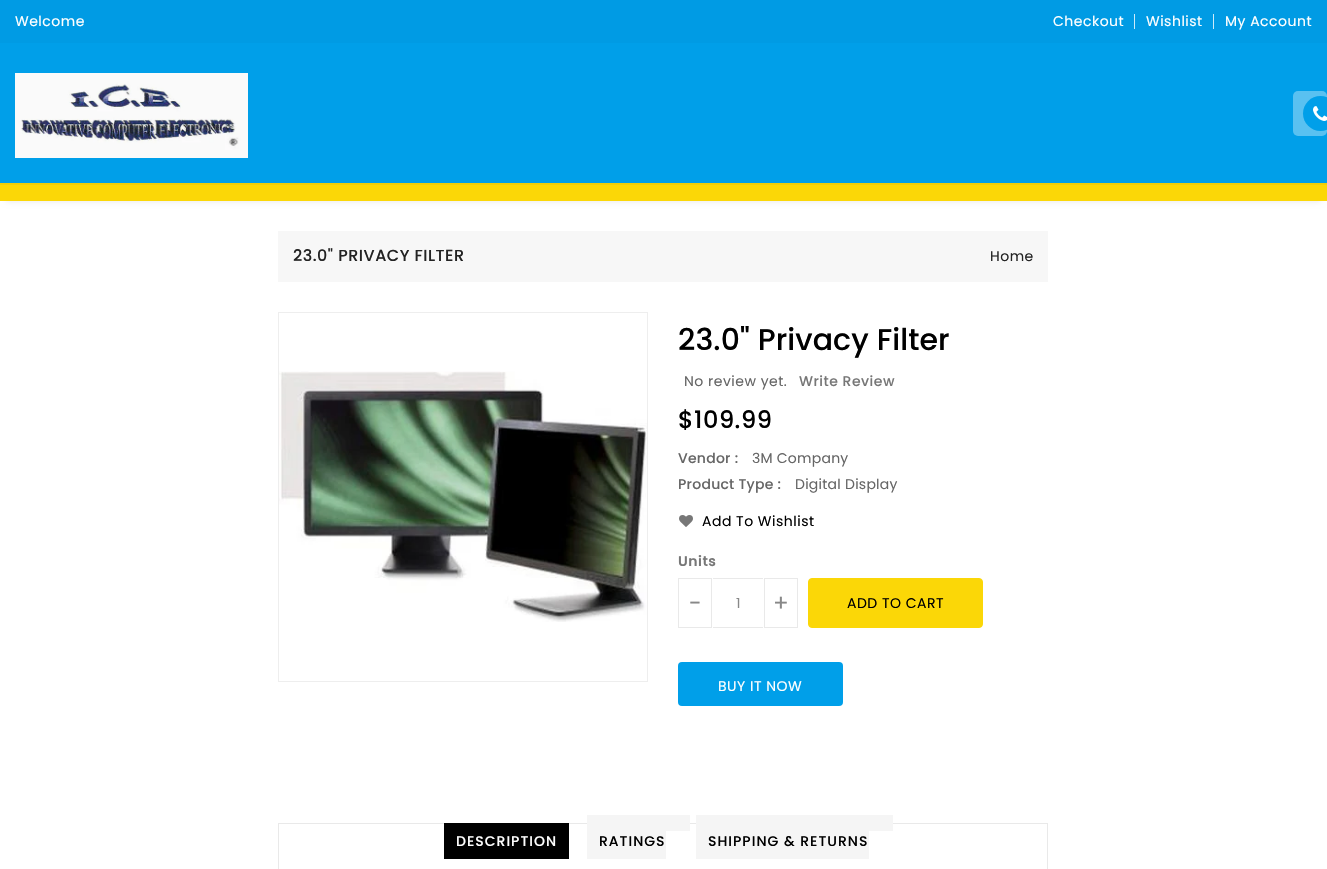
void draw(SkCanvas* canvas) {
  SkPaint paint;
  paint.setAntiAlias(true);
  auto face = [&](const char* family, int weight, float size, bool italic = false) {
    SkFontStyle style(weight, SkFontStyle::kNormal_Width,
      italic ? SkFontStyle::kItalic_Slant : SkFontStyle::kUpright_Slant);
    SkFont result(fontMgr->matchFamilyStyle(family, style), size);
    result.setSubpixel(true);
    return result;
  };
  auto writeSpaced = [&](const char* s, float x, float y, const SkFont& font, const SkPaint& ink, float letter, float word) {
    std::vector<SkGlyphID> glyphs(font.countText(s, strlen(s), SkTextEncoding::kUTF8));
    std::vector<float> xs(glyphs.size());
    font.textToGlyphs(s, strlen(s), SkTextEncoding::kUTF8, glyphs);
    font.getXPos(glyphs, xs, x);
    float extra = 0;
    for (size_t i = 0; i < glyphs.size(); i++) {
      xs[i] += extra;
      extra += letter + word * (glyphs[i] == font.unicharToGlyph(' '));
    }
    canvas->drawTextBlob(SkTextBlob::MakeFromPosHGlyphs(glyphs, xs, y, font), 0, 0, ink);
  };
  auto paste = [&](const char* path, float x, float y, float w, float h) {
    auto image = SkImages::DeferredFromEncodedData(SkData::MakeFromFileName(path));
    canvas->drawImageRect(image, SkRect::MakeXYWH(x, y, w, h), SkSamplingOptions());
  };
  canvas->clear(0xffffffff);
  {
    const struct { float x, y, w, h; SkColor color; } items[] = {
      {0, 0, 1327, 43, 0xff009be4},
      {1134, 14, 1, 15, 0xffccebfa},
      {1213, 14, 1, 15, 0xffccebfa},
      {0, 43, 1327, 140, 0xff009fe9},
    };
    for (auto [x, y, w, h, color] : items) {
      paint.setColor(color);
      canvas->drawRect(SkRect::MakeXYWH(x, y, w, h), paint);
    }
  }
  paste("img/1.png", 15, 73, 233, 85);
  paint.setColor(0xff59c1f1);
  canvas->drawRoundRect(SkRect::MakeXYWH(1293, 91, 34, 45), 5, 5, paint);
  paint.setColor(0xff009fe9);
  canvas->drawCircle(1320.5f, 113.5f, 17.5f, paint);
  paste("img/2.png", 1313, 106, 14, 15);
  paint.setColor(0x1a000000);
  paint.setMaskFilter(SkMaskFilter::MakeBlur(kNormal_SkBlurStyle, 3));
  canvas->drawRect(SkRect::MakeXYWH(6, 195, 1315, 6), paint);
  paint.setMaskFilter(nullptr);
  {
    const struct { float x, y, w, h; SkColor color; } items[] = {
      {0, 185, 1327, 16, 0xfffbd707},
      {0, 183, 1327, 2, 0xfff1ce07},
      {278, 231, 770, 51, 0xfff7f7f7},
    };
    for (auto [x, y, w, h, color] : items) {
      paint.setColor(color);
      canvas->drawRect(SkRect::MakeXYWH(x, y, w, h), paint);
    }
  }
  paint.setStroke(true);
  paint.setStrokeWidth(1);
  paint.setColor(0xffeeeeee);
  canvas->drawRect(SkRect::MakeXYWH(278.5f, 312.5f, 369, 369), paint);
  paste("img/3.png", 279, 371, 368, 251);
  paste("img/4.png", 679, 515, 14, 12);
  paint.setColor(0xffe9e9e9);
  canvas->drawRect(SkRect::MakeXYWH(678.5f, 578.5f, 33, 49), paint);
  paint.setStroke(false);
  canvas->drawRect(SkRect::MakeXYWH(713, 578, 50, 1), paint);
  canvas->drawRect(SkRect::MakeXYWH(713, 627, 50, 1), paint);
  paint.setStroke(true);
  canvas->drawRect(SkRect::MakeXYWH(764.5f, 578.5f, 33, 49), paint);
  paint.setStroke(false);
  paint.setColor(0xfffbd707);
  canvas->drawRoundRect(SkRect::MakeXYWH(808.5f, 578.5f, 174, 49), 3.5f, 3.5f, paint);
  paint.setStroke(true);
  canvas->drawRoundRect(SkRect::MakeXYWH(808.5f, 578.5f, 174, 49), 3.5f, 3.5f, paint);
  paint.setStroke(false);
  paint.setColor(0xff009fe9);
  canvas->drawRoundRect(SkRect::MakeXYWH(678, 662, 165, 44), 4, 4, paint);
  paint.setStroke(true);
  paint.setColor(0xffe9e9e9);
  canvas->drawRect(SkRect::MakeXYWH(278.5f, 823.5f, 769, 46), paint);
  paint.setStroke(false);
  {
    const struct { float x, y, w, h; SkColor color; } items[] = {
      {444, 823, 125, 36, 0xff000000},
      {587, 831, 79, 28, 0xfff5f5f5},
      {587, 815, 103, 16, 0xfff5f5f5},
      {696, 831, 173, 28, 0xfff5f5f5},
      {696, 815, 197, 16, 0xfff5f5f5},
    };
    for (auto [x, y, w, h, color] : items) {
      paint.setColor(color);
      canvas->drawRect(SkRect::MakeXYWH(x, y, w, h), paint);
    }
  }
  auto f0 = face("Poppins", 400, 14);
  paint.setColor(0xffffffff);
  {
    const struct { const char* s; float x, y; } items[] = {
      {"Welcome", 15, 26},
      {"Checkout", 1053, 26},
      {"Wishlist", 1146, 26},
      {"My Account", 1225, 26},
    };
    for (auto [s, x, y] : items) {
      writeSpaced(s, x, y, f0, paint, 0.5f, 0);
    }
  }
  auto f1 = face("Poppins", 500, 16);
  paint.setColor(0xff232323);
  writeSpaced("23.0\" PRIVACY FILTER", 293, 261, f1, paint, 0.5f, 0);
  writeSpaced("Home", 990, 261, f0, paint, 0.5f, 0);
  auto f2 = face("Poppins", 500, 30);
  paint.setColor(0xff000000);
  writeSpaced("23.0\" Privacy Filter", 678, 350, f2, paint, 0.1f, 0);
  paint.setColor(0xff666666);
  writeSpaced("No review yet.", 684, 386, f0, paint, 0.5f, 0);
  auto f3 = face("Poppins", 500, 14);
  paint.setColor(0xff777777);
  writeSpaced("Write Review", 799, 386, f3, paint, 0.5f, 0);
  auto f4 = face("Poppins", 500, 24);
  paint.setColor(0xff000000);
  writeSpaced("$109.99", 678, 428, f4, paint, 0.5f, 0);
  paint.setColor(0xff666666);
  writeSpaced("Vendor :", 678, 463, f3, paint, 0.25f, 0);
  writeSpaced("3M Company", 752, 463, f0, paint, 0.25f, 0);
  writeSpaced("Product Type :", 678, 489, f3, paint, 0.25f, 0);
  writeSpaced("Digital Display", 795, 489, f0, paint, 0.25f, 0);
  paint.setColor(0xff000000);
  writeSpaced("Add To Wishlist", 702, 526, f0, paint, 0.5f, 0);
  auto f5 = face("Poppins", 600, 14);
  paint.setColor(0xff777777);
  writeSpaced("Units", 678, 566, f5, paint, 0.5f, 0);
  auto f6 = face("Poppins", 400, 23);
  paint.setColor(0xff888888);
  writeSpaced("-", 689, 611, f6, paint, 0.5f, 0);
  writeSpaced("1", 736, 608, f0, paint, 0.5f, 0);
  writeSpaced("+", 773, 611, f6, paint, 0.5f, 0);
  paint.setColor(0xff000000);
  writeSpaced("ADD TO CART", 847, 608, f0, paint, 0.5f, 0);
  paint.setColor(0xffffffff);
  writeSpaced("BUY IT NOW", 718, 691, f0, paint, 0.5f, 0);
  writeSpaced("DESCRIPTION", 456, 846, f3, paint, 1, 0);
  paint.setColor(0xff000000);
  writeSpaced("RATINGS", 599, 846, f3, paint, 1, 0);
  writeSpaced("SHIPPING & RETURNS", 708, 846, f3, paint, 1, 0);
}
